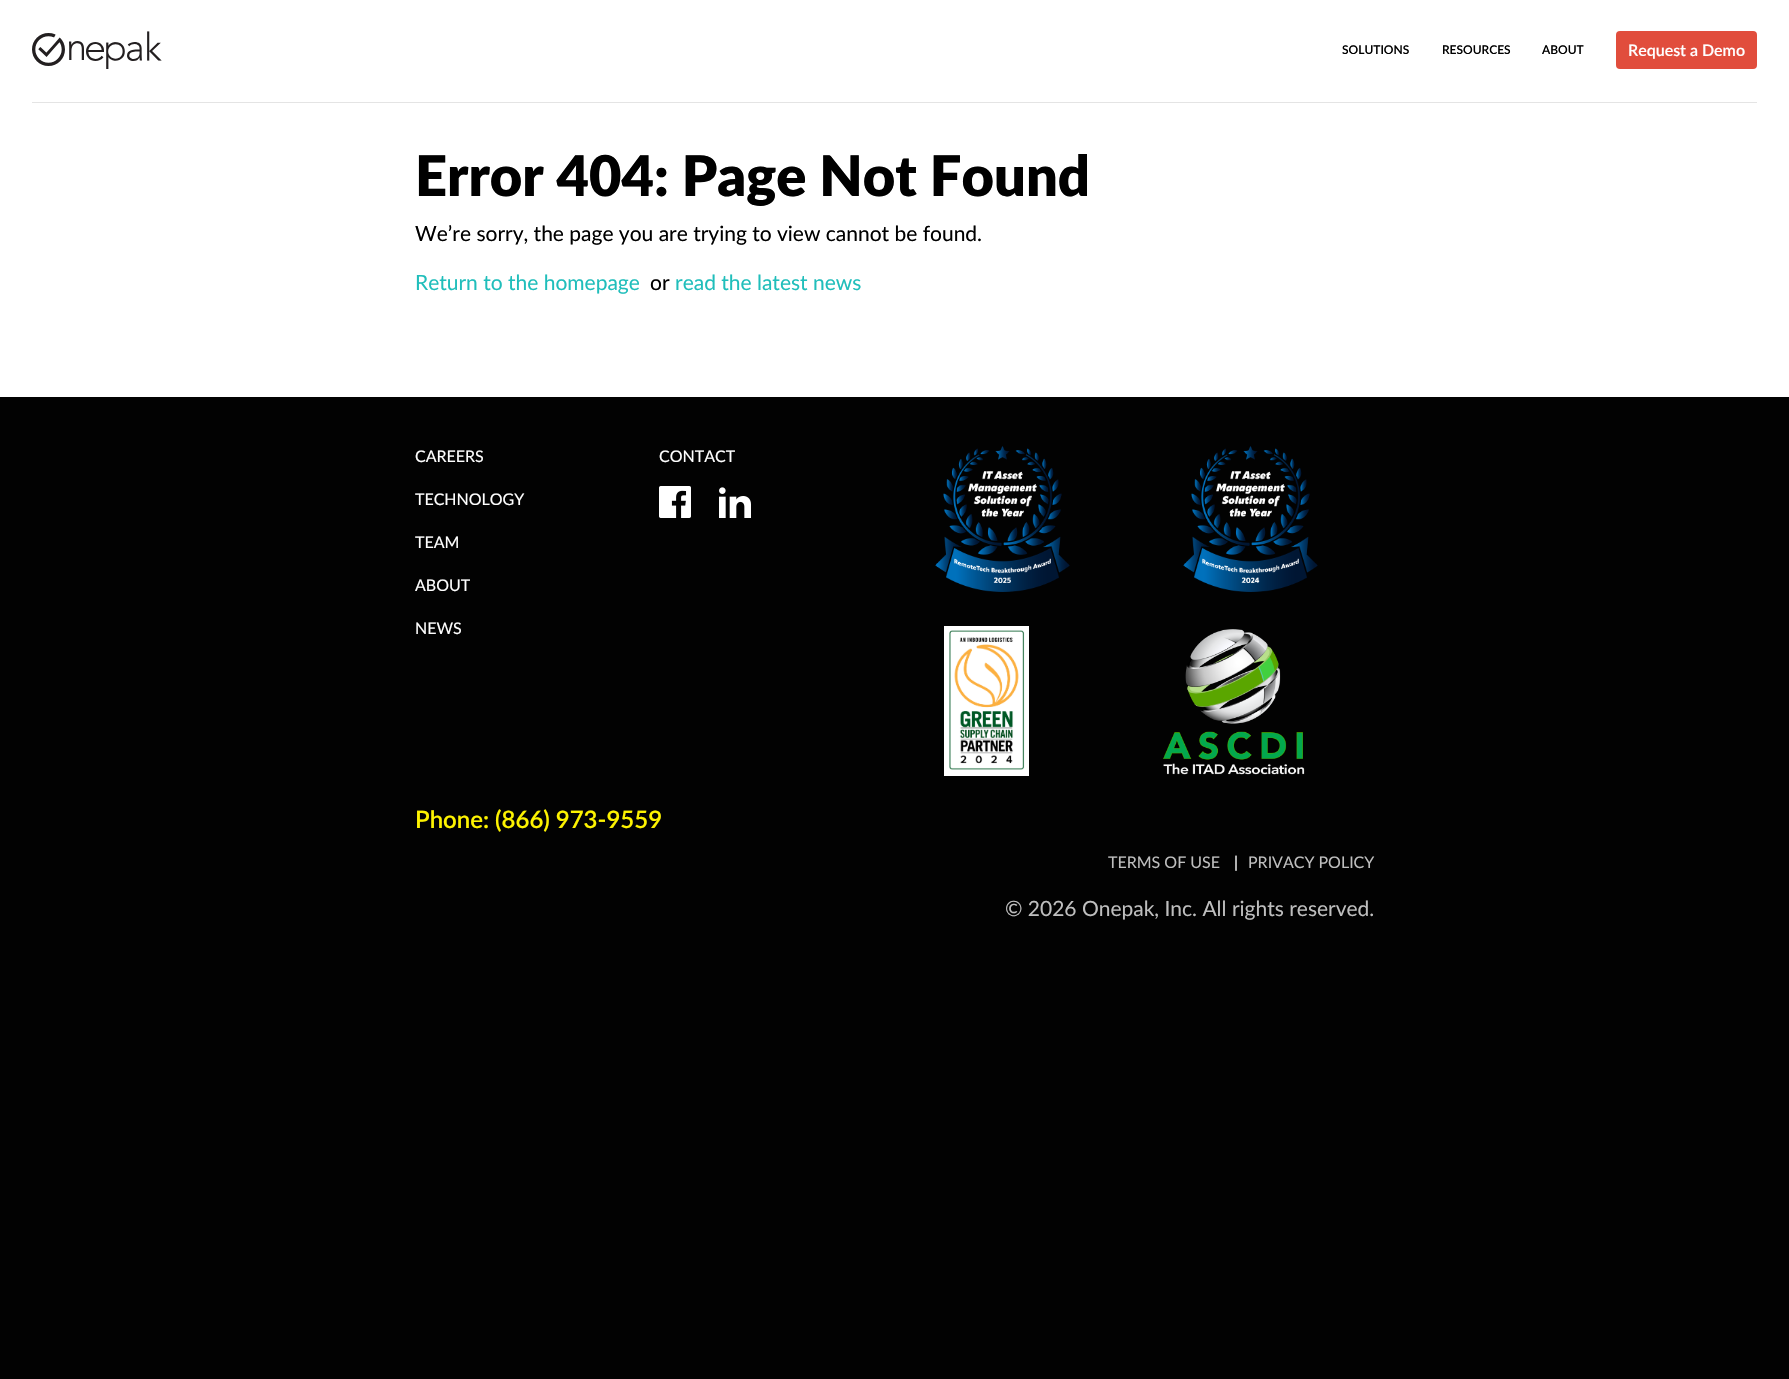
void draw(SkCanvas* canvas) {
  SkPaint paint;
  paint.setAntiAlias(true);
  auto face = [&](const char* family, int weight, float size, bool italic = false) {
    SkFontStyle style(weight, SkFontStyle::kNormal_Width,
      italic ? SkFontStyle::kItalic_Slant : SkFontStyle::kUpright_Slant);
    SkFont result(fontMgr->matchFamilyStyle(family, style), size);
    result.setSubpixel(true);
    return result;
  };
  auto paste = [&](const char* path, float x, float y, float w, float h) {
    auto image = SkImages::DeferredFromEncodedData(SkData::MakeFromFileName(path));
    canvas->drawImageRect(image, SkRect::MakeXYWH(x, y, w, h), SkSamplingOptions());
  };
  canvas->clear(0xff020202);
  paint.setColor(0xffffffff);
  canvas->drawRect(SkRect::MakeXYWH(0, 0, 1789, 397), paint);
  paint.setColor(0xffe4e4e4);
  canvas->drawRect(SkRect::MakeXYWH(32, 102, 1725, 1), paint);
  paste("img/1.png", 32, 31, 130, 38);
  paint.setColor(0xffe14d3c);
  canvas->drawRoundRect(SkRect::MakeXYWH(1616, 31, 141, 38), 4, 4, paint);
  paste("img/2.png", 659, 486, 32, 32);
  paste("img/3.png", 719, 487, 32, 31);
  paste("img/4.png", 935, 446, 135, 146);
  paste("img/5.png", 1183, 446, 135, 146);
  paste("img/6.png", 944, 626, 85, 150);
  paste("img/7.png", 1163, 629, 142, 146);
  auto f0 = face("Lato", 600, 12);
  paint.setColor(0xff000000);
  {
    const struct { const char* s; float x, y; } items[] = {
      {"SOLUTIONS", 1342, 54},
      {"RESOURCES", 1442, 54},
      {"ABOUT", 1542, 54},
    };
    for (auto [s, x, y] : items) {
      canvas->drawString(s, x, y, f0, paint);
    }
  }
  auto f1 = face("Lato", 600, 16);
  paint.setColor(0xffffffff);
  canvas->drawString("Request a Demo", 1628, 56, f1, paint);
  auto f2 = face("Lato", 900, 56);
  paint.setColor(0xff000000);
  canvas->drawString("Error 404: Page Not Found", 415, 196, f2, paint);
  auto f3 = face("Lato", 400, 21);
  canvas->drawString("We’re sorry, the page you are trying to view cannot be found.", 415, 241, f3, paint);
  paint.setColor(0xff20bebb);
  canvas->drawString("Return to the homepage", 415, 290, f3, paint);
  paint.setColor(0xff000000);
  canvas->drawString("or", 650, 290, f3, paint);
  paint.setColor(0xff20bebb);
  canvas->drawString("read the latest news", 675, 290, f3, paint);
  auto f4 = face("Lato", 400, 16);
  paint.setColor(0xffffffff);
  {
    const struct { const char* s; float x, y; } items[] = {
      {"CAREERS", 415, 462},
      {"TECHNOLOGY", 415, 505},
      {"TEAM", 415, 548},
      {"ABOUT", 415, 591},
      {"NEWS", 415, 634},
      {"CONTACT", 659, 462},
    };
    for (auto [s, x, y] : items) {
      canvas->drawString(s, x, y, f4, paint);
    }
  }
  auto f5 = face("Lato", 600, 24);
  paint.setColor(0xfffef300);
  canvas->drawString("Phone: (866) 973-9559", 415, 828, f5, paint);
  paint.setColor(0xffbebebe);
  canvas->drawString("TERMS OF USE", 1108, 868, f4, paint);
  paint.setColor(0xffffffff);
  canvas->drawString("|", 1234, 868, f4, paint);
  paint.setColor(0xffbebebe);
  canvas->drawString("PRIVACY POLICY", 1248, 868, f4, paint);
  canvas->drawString("© 2026 Onepak, Inc. All rights reserved.", 1005, 916, f3, paint);
}
